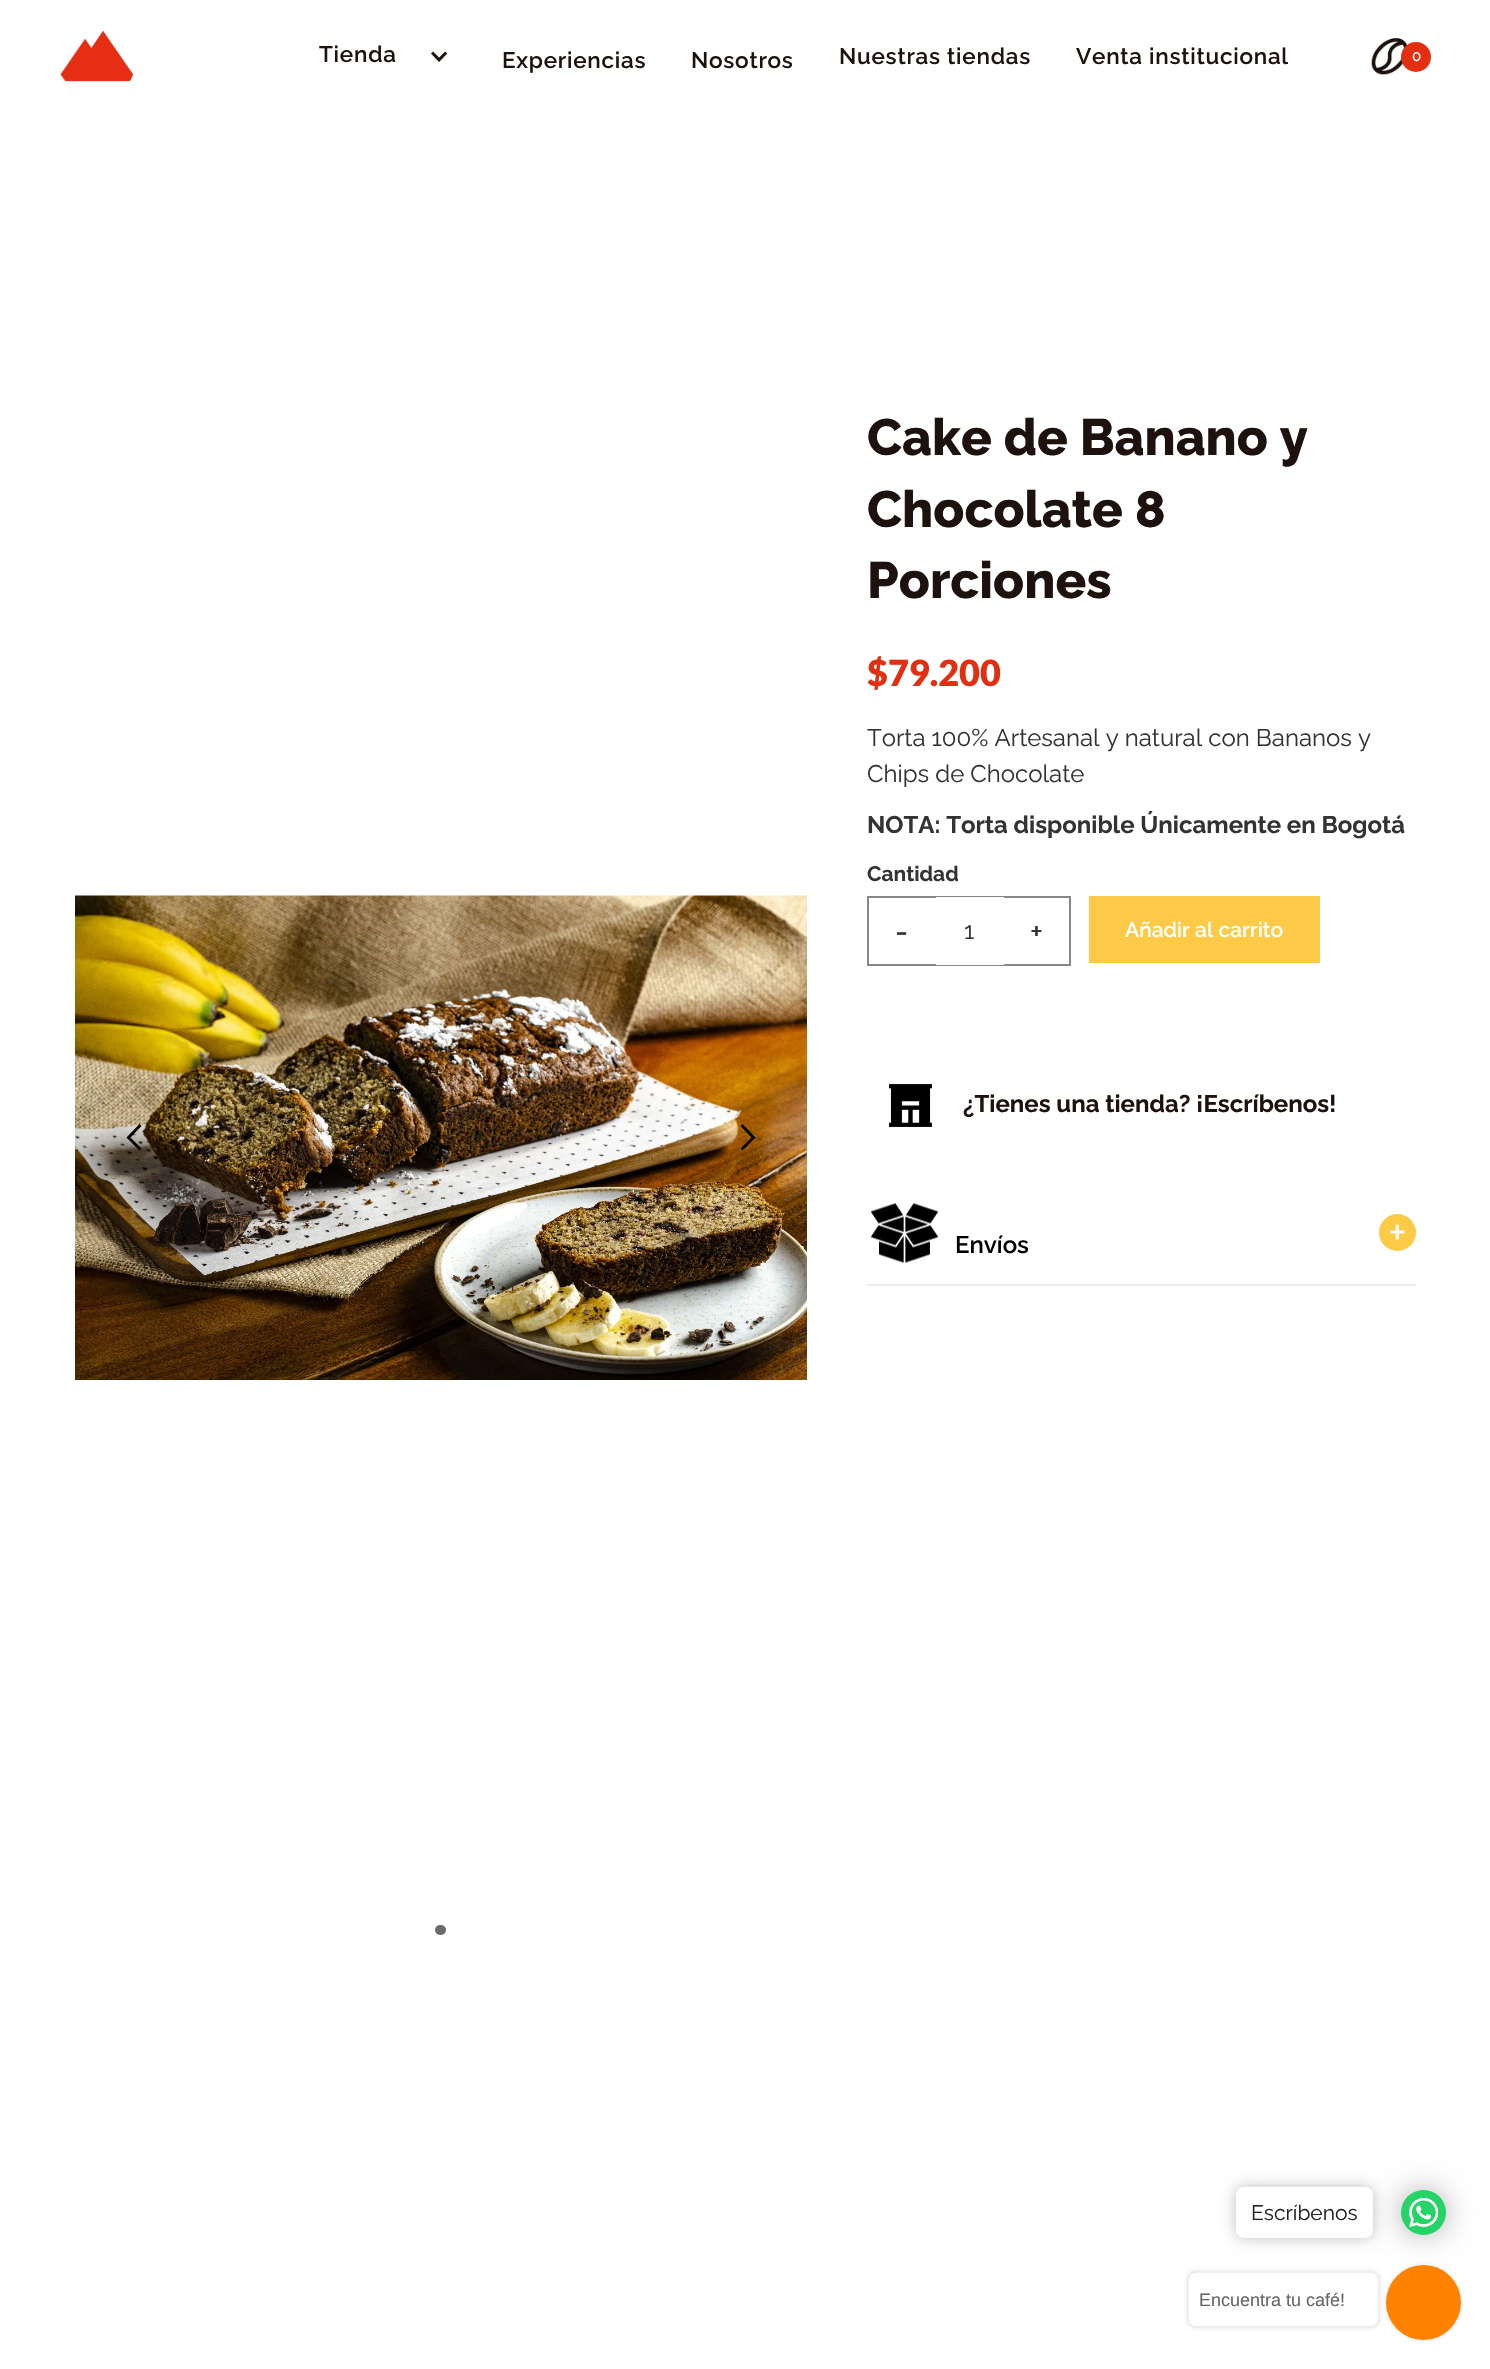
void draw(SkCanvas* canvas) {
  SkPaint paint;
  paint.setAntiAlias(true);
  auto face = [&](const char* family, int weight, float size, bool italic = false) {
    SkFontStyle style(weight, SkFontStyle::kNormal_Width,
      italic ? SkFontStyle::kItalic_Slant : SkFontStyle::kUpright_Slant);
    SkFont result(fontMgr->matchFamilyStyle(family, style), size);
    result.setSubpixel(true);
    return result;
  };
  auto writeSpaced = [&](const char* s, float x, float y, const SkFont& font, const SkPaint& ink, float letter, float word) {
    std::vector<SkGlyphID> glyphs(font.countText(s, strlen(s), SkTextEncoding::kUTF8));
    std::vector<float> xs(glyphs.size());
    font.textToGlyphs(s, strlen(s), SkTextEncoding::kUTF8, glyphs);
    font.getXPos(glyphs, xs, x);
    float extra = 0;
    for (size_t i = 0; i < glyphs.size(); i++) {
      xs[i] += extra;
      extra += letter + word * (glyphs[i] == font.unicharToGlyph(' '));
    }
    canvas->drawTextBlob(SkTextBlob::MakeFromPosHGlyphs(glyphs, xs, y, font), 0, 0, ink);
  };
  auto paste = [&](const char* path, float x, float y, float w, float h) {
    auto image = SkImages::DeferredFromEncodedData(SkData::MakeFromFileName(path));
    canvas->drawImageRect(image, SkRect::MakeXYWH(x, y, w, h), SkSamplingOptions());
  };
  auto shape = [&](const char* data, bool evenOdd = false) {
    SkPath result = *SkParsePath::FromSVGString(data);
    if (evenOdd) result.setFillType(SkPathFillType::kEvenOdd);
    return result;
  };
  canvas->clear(0xffffffff);
  paste("img/1.png", 60, 30, 74, 52);
  paste("img/2.png", 431, 51, 17, 11);
  paste("img/3.png", 1371, 37, 36, 38);
  paint.setColor(0xffe42e12);
  canvas->drawCircle(1416, 57, 15, paint);
  paste("img/4.png", 75, 895, 732, 485);
  paint.setColor(0xff000000);
  canvas->drawPath(shape("M126.5 1137.5L139.5 1124L141.5 1126L130.5 1137.5L141.5 1148.5L139.5 1150.5Z"), paint);
  canvas->drawPath(shape("M755.5 1137.5L742.5 1124L740.5 1126L751.5 1137.5L740.5 1148.5L742.5 1150.5Z"), paint);
  paint.setColor(0xff6b6b6b);
  canvas->drawRoundRect(SkRect::MakeXYWH(435, 1925, 11, 10), 5, 5, paint);
  paint.setStroke(true);
  paint.setStrokeWidth(2);
  paint.setColor(0xff878787);
  canvas->drawRect(SkRect::MakeXYWH(868, 897, 202, 68), paint);
  paint.setStroke(false);
  paint.setColor(0xffffffff);
  canvas->drawRect(SkRect::MakeXYWH(936, 897, 68, 68), paint);
  paint.setColor(0xfffcca46);
  canvas->drawRect(SkRect::MakeXYWH(1089, 896, 231, 67), paint);
  paste("img/5.png", 889, 1084, 43, 43);
  paint.setColor(0xffededed);
  canvas->drawRect(SkRect::MakeXYWH(867, 1284, 549, 2), paint);
  paint.setColor(0xfffcca46);
  canvas->drawCircle(1397.5f, 1232.5f, 18.5f, paint);
  paste("img/6.png", 870, 1203, 69, 60);
  paint.setColor(0x52000000);
  paint.setMaskFilter(SkMaskFilter::MakeBlur(kNormal_SkBlurStyle, 15));
  canvas->drawRoundRect(SkRect::MakeXYWH(1401, 2190, 45, 45), 22.5f, 22.5f, paint);
  paint.setMaskFilter(nullptr);
  paint.setColor(0xff25d366);
  canvas->drawCircle(1423.5f, 2212.5f, 22.5f, paint);
  paint.setColor(0x40000000);
  paint.setMaskFilter(SkMaskFilter::MakeBlur(kNormal_SkBlurStyle, 7.5f));
  canvas->drawRoundRect(SkRect::MakeXYWH(1236, 2187, 137, 51), 8, 8, paint);
  paint.setMaskFilter(nullptr);
  paint.setColor(0xffffffff);
  canvas->drawRoundRect(SkRect::MakeXYWH(1236, 2187, 137, 51), 8, 8, paint);
  paste("img/7.png", 1409, 2198, 29, 29);
  paint.setColor(0x1a000000);
  paint.setMaskFilter(SkMaskFilter::MakeBlur(kNormal_SkBlurStyle, 2));
  canvas->drawRoundRect(SkRect::MakeXYWH(1386, 2265, 75, 75), 37.5f, 37.5f, paint);
  paint.setMaskFilter(nullptr);
  paint.setColor(0xffff8200);
  canvas->drawCircle(1423.5f, 2302.5f, 37.5f, paint);
  paint.setColor(0x1a000000);
  paint.setMaskFilter(SkMaskFilter::MakeBlur(kNormal_SkBlurStyle, 2));
  canvas->drawRoundRect(SkRect::MakeXYWH(1187, 2271, 193, 57), 9, 9, paint);
  paint.setMaskFilter(nullptr);
  paint.setColor(0xffffffff);
  canvas->drawRoundRect(SkRect::MakeXYWH(1188, 2272, 191, 55), 8, 8, paint);
  paint.setStroke(true);
  paint.setColor(0xffeeeeee);
  canvas->drawRoundRect(SkRect::MakeXYWH(1188, 2272, 191, 55), 8, 8, paint);
  auto f0 = face("Raleway", 600, 22.5f);
  paint.setStroke(false);
  paint.setColor(0xff1e120e);
  {
    const struct { const char* s; float x, y; } items[] = {
      {"Tienda", 319, 62},
      {"Experiencias", 502, 68},
      {"Nosotros", 691, 68},
      {"Nuestras tiendas", 839, 64},
      {"Venta institucional", 1076, 64},
    };
    for (auto [s, x, y] : items) {
      writeSpaced(s, x, y, f0, paint, 0.75f, 0);
    }
  }
  auto f1 = face("Raleway", 500, 15);
  paint.setColor(0xffffffff);
  canvas->drawString("0", 1412, 61, f1, paint);
  auto f2 = face("Raleway", 800, 51);
  paint.setColor(0xff1e120e);
  {
    const struct { const char* s; float x, y; } items[] = {
      {"Cake de Banano y", 867, 455},
      {"Chocolate 8", 867, 527},
      {"Porciones", 867, 598},
    };
    for (auto [s, x, y] : items) {
      canvas->drawString(s, x, y, f2, paint);
    }
  }
  auto f3 = face("Lato", 900, 36);
  paint.setColor(0xffe42e12);
  canvas->drawString("$79.200", 867, 686, f3, paint);
  auto f4 = face("Raleway", 400, 24);
  paint.setColor(0xff333333);
  canvas->drawString("Torta 100% Artesanal y natural con Bananos y", 867, 746, f4, paint);
  canvas->drawString("Chips de Chocolate", 867, 782, f4, paint);
  auto f5 = face("Raleway", 700, 24);
  canvas->drawString("NOTA: Torta disponible Únicamente en Bogotá", 867, 833, f5, paint);
  auto f6 = face("Raleway", 700, 21);
  canvas->drawString("Cantidad", 867, 881, f6, paint);
  auto f7 = face("Raleway", 500, 31);
  canvas->drawString("-", 895, 942, f7, paint);
  canvas->drawString("1", 964, 939, f4, paint);
  canvas->drawString("+", 1030, 942, f7, paint);
  auto f8 = face("Raleway", 600, 21);
  paint.setColor(0xffffffff);
  canvas->drawString("Añadir al carrito", 1125, 937, f8, paint);
  paint.setColor(0xff1e120e);
  canvas->drawString("¿Tienes una tienda? ¡Escríbenos!", 963, 1112, f5, paint);
  auto f9 = face("Raleway", 400, 45);
  paint.setColor(0xffffffff);
  canvas->drawString("+", 1388, 1248, f9, paint);
  auto f10 = face("Raleway", 600, 24);
  paint.setColor(0xff000000);
  canvas->drawString("Envíos", 955, 1253, f10, paint);
  auto f11 = face("Raleway", 400, 21);
  paint.setColor(0xff1f1f1f);
  canvas->drawString("Escríbenos", 1251, 2220, f11, paint);
  auto f12 = face("Liberation Sans", 400, 18);
  paint.setColor(0xff666666);
  canvas->drawString("Encuentra tu café!", 1199, 2306, f12, paint);
}
